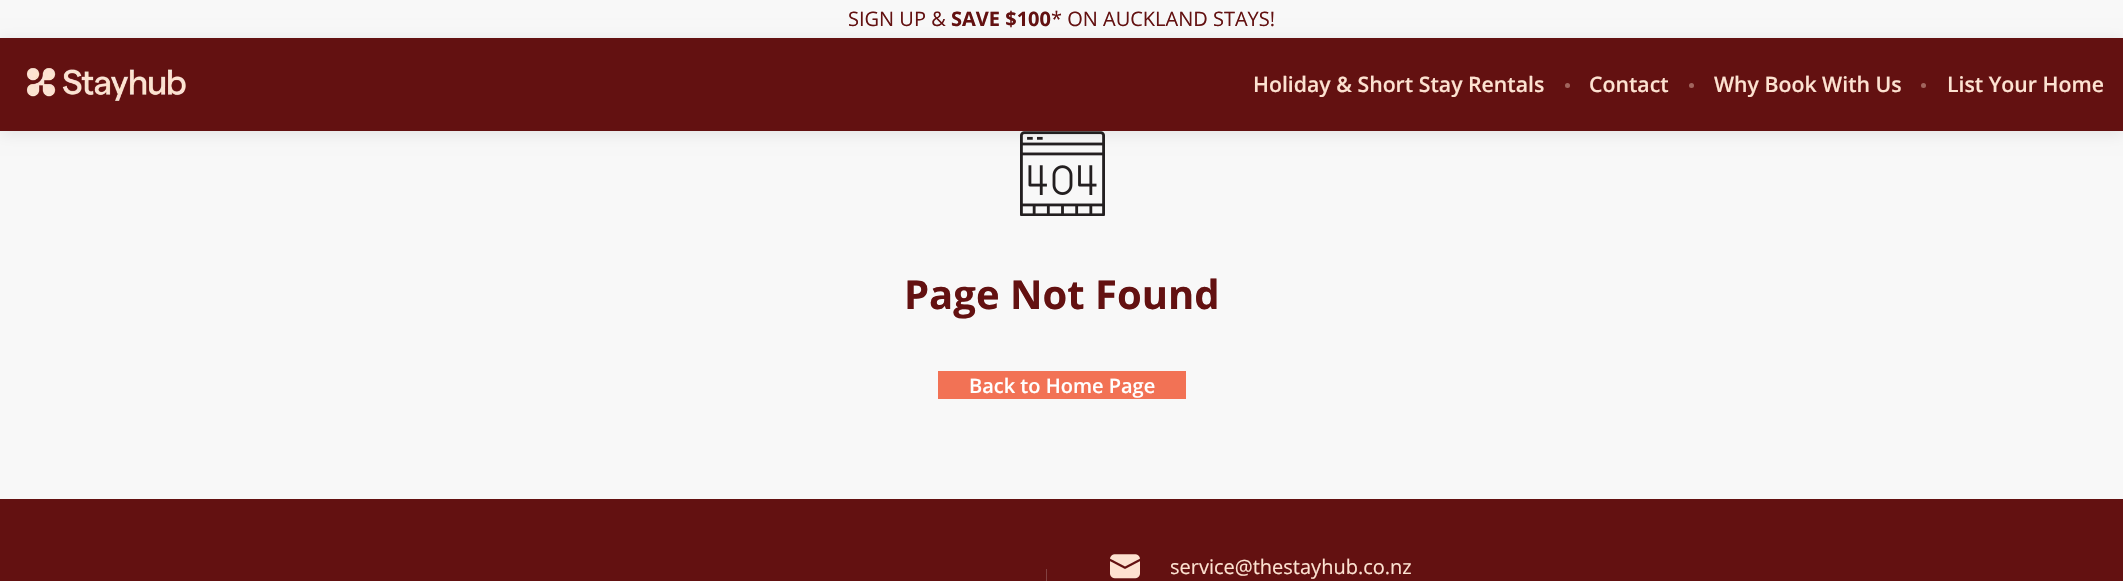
void draw(SkCanvas* canvas) {
  SkPaint paint;
  paint.setAntiAlias(true);
  auto face = [&](const char* family, int weight, float size, bool italic = false) {
    SkFontStyle style(weight, SkFontStyle::kNormal_Width,
      italic ? SkFontStyle::kItalic_Slant : SkFontStyle::kUpright_Slant);
    SkFont result(fontMgr->matchFamilyStyle(family, style), size);
    result.setSubpixel(true);
    return result;
  };
  auto paste = [&](const char* path, float x, float y, float w, float h) {
    auto image = SkImages::DeferredFromEncodedData(SkData::MakeFromFileName(path));
    canvas->drawImageRect(image, SkRect::MakeXYWH(x, y, w, h), SkSamplingOptions());
  };
  canvas->clear(0xfff8f8f8);
  paste("img/2.png", 1020, 131, 85, 85);
  paint.setColor(0x14000000);
  paint.setMaskFilter(SkMaskFilter::MakeBlur(kNormal_SkBlurStyle, 7.5f));
  canvas->drawRect(SkRect::MakeXYWH(0, 40, 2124, 94), paint);
  paint.setMaskFilter(nullptr);
  paint.setColor(0xff631111);
  canvas->drawRect(SkRect::MakeXYWH(0, 38, 2123, 93), paint);
  paste("img/1.png", 26, 68, 160, 33);
  paint.setColor(0xffa1655e);
  canvas->drawCircle(1567.5f, 85.5f, 2.5f, paint);
  canvas->drawCircle(1691.5f, 85.5f, 2.5f, paint);
  canvas->drawCircle(1923.5f, 85.5f, 2.5f, paint);
  {
    const struct { float x, y, w, h; SkColor color; } items[] = {
      {938, 371, 248, 28, 0xfff27255},
      {0, 499, 2123, 82, 0xff631111},
      {1046, 569, 1, 12, 0xff824141},
    };
    for (auto [x, y, w, h, color] : items) {
      paint.setColor(color);
      canvas->drawRect(SkRect::MakeXYWH(x, y, w, h), paint);
    }
  }
  paste("img/3.png", 1110, 554, 30, 25);
  auto f0 = face("Open Sans", 400, 20);
  paint.setColor(0xff631111);
  canvas->drawString("SIGN UP &", 848, 26, f0, paint);
  auto f1 = face("Open Sans", 700, 20);
  canvas->drawString("SAVE $100", 951, 26, f1, paint);
  canvas->drawString("* ON AUCKLAND STAYS!", 1051, 26, f0, paint);
  auto f2 = face("Open Sans", 600, 21.25f);
  paint.setColor(0xfffde2d1);
  {
    const struct { const char* s; float x, y; } items[] = {
      {"Holiday & Short Stay Rentals", 1253, 92},
      {"Contact", 1589, 92},
      {"Why Book With Us", 1714, 92},
      {"List Your Home", 1947, 92},
    };
    for (auto [s, x, y] : items) {
      canvas->drawString(s, x, y, f2, paint);
    }
  }
  auto f3 = face("Open Sans", 700, 40);
  paint.setColor(0xff631111);
  canvas->drawString("Page Not Found", 904, 309, f3, paint);
  auto f4 = face("Open Sans", 600, 20);
  paint.setColor(0xffffffff);
  canvas->drawString("Back to Home Page", 969, 393, f4, paint);
  paint.setColor(0xfffde2d1);
  canvas->drawString("service@thestayhub.co.nz", 1170, 574, f0, paint);
}
